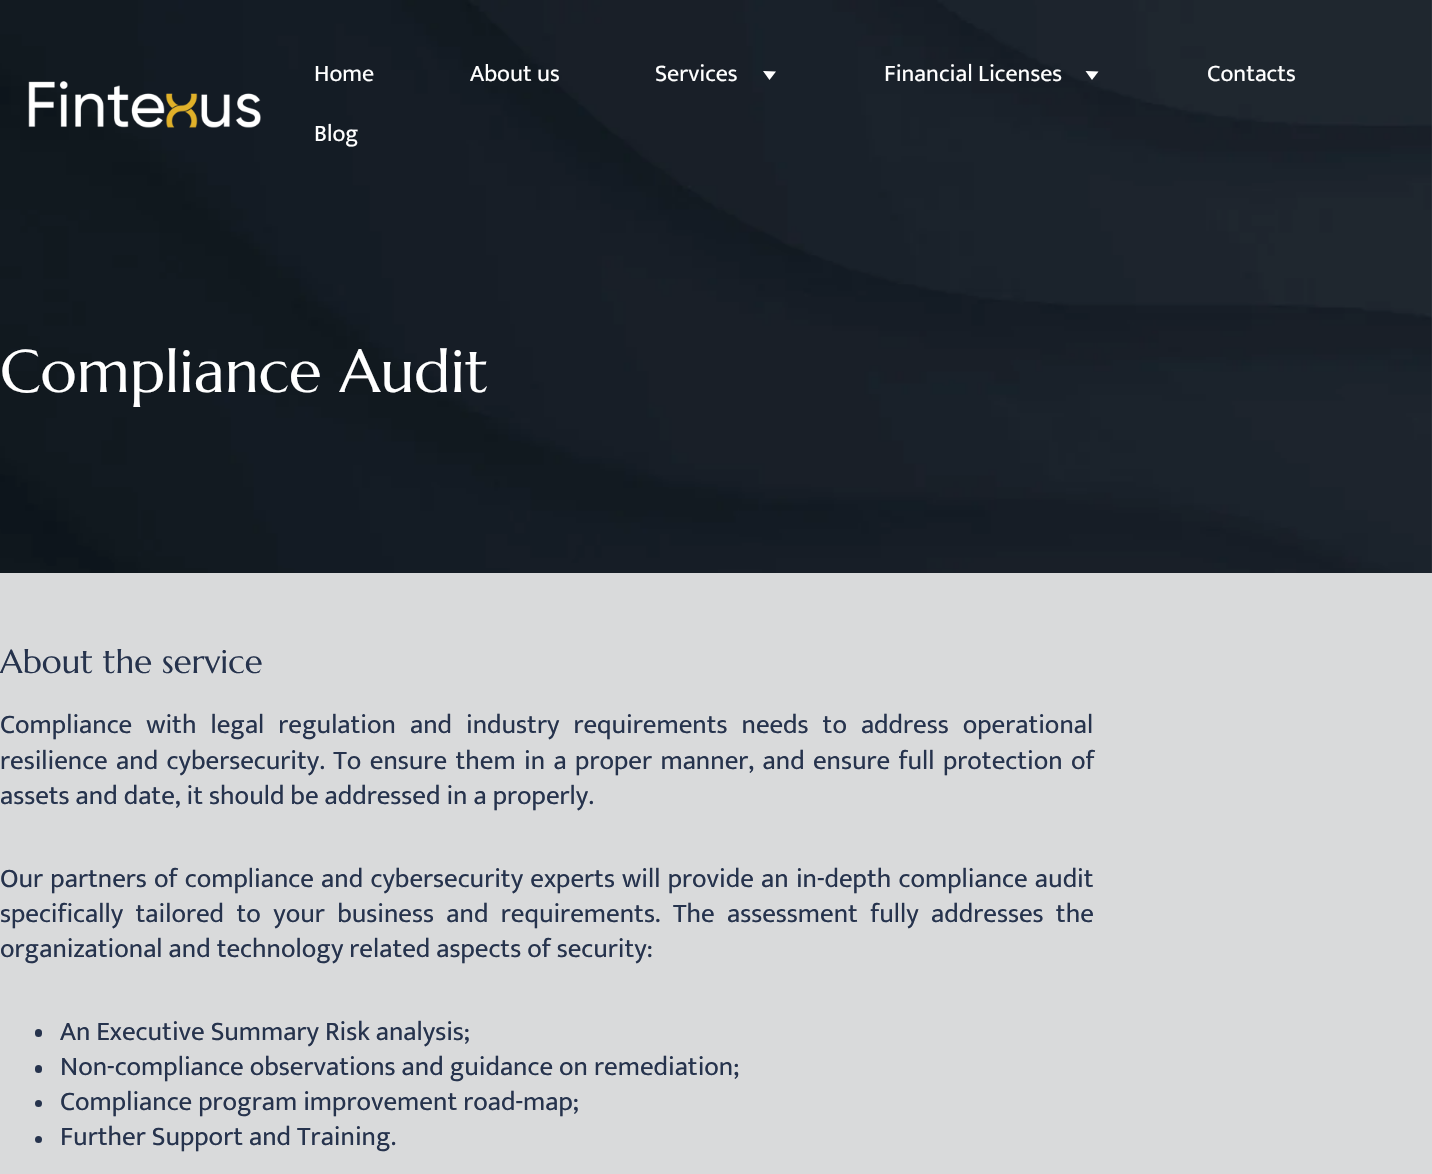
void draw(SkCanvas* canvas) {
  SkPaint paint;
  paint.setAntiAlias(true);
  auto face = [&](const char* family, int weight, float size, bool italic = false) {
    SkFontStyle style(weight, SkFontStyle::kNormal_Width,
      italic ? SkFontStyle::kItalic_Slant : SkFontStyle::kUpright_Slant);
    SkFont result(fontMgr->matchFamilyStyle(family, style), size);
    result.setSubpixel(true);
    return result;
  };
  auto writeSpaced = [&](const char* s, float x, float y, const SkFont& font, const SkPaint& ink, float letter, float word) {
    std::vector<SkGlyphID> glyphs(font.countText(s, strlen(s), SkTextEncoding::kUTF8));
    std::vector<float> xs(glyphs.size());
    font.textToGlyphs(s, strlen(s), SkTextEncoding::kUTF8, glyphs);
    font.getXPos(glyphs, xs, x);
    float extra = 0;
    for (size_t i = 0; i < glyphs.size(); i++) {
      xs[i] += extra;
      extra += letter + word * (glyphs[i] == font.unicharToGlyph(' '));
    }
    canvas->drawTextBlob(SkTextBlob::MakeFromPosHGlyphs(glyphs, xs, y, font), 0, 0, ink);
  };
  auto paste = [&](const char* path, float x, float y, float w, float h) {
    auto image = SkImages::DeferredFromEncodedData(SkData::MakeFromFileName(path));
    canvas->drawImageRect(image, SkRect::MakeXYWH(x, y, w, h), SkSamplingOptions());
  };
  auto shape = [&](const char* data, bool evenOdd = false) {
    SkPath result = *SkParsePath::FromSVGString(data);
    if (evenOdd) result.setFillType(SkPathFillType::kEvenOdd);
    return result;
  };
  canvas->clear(0xffffffff);
  paste("img/2.png", 0, 0, 1432, 573);
  paste("img/1.png", 28, 81, 233, 47);
  paint.setColor(0xffffffff);
  canvas->drawPath(shape("M769.5 80L763 71L776 71.5Z"), paint);
  canvas->drawPath(shape("M1092 80L1085.5 71L1098.5 71.5Z"), paint);
  paint.setColor(0xffd9dadb);
  canvas->drawRect(SkRect::MakeXYWH(0, 573, 1432, 601), paint);
  paint.setColor(0xff26334d);
  canvas->drawRoundRect(SkRect::MakeXYWH(35, 1029, 7, 8), 3.5f, 3.5f, paint);
  canvas->drawRoundRect(SkRect::MakeXYWH(35, 1065, 7, 8), 3.5f, 3.5f, paint);
  canvas->drawCircle(38.5f, 1103.5f, 3.5f, paint);
  canvas->drawCircle(38.5f, 1139.5f, 3.5f, paint);
  auto f0 = face("Mukta", 400, 24);
  paint.setColor(0xffffffff);
  {
    const struct { const char* s; float x, y; } items[] = {
      {"Home", 314, 81},
      {"About us", 470, 81},
      {"Services", 655, 81},
      {"Financial Licenses", 884, 81},
      {"Contacts", 1207, 81},
      {"Blog", 314, 141},
    };
    for (auto [s, x, y] : items) {
      canvas->drawString(s, x, y, f0, paint);
    }
  }
  auto f1 = face("Marcellus", 400, 60);
  canvas->drawString("Compliance Audit", 0, 392, f1, paint);
  auto f2 = face("Marcellus", 400, 33);
  paint.setColor(0xff26334d);
  canvas->drawString("About the service", 0, 673, f2, paint);
  auto f3 = face("Mukta", 400, 27);
  writeSpaced("Compliance with legal regulation and industry requirements needs to address operational", 0, 733, f3, paint, 0, 8);
  writeSpaced("resilience and cybersecurity. To ensure them in a proper manner, and ensure full protection of", 0, 769, f3, paint, 0, 2.4f);
  canvas->drawString("assets and date, it should be addressed in a properly.", 0, 804, f3, paint);
  writeSpaced("Our partners of compliance and cybersecurity experts will provide an in-depth compliance audit", 0, 887, f3, paint, 0, 1.25f);
  writeSpaced("specifically tailored to your business and requirements. The assessment fully addresses the", 0, 922, f3, paint, 0, 6.4f);
  {
    const struct { const char* s; float x, y; } items[] = {
      {"organizational and technology related aspects of security:", 0, 957},
      {"An Executive Summary Risk analysis;", 60, 1040},
      {"Non-compliance observations and guidance on remediation;", 60, 1075},
      {"Compliance program improvement road-map;", 60, 1110},
      {"Further Support and Training.", 60, 1145},
    };
    for (auto [s, x, y] : items) {
      canvas->drawString(s, x, y, f3, paint);
    }
  }
}
